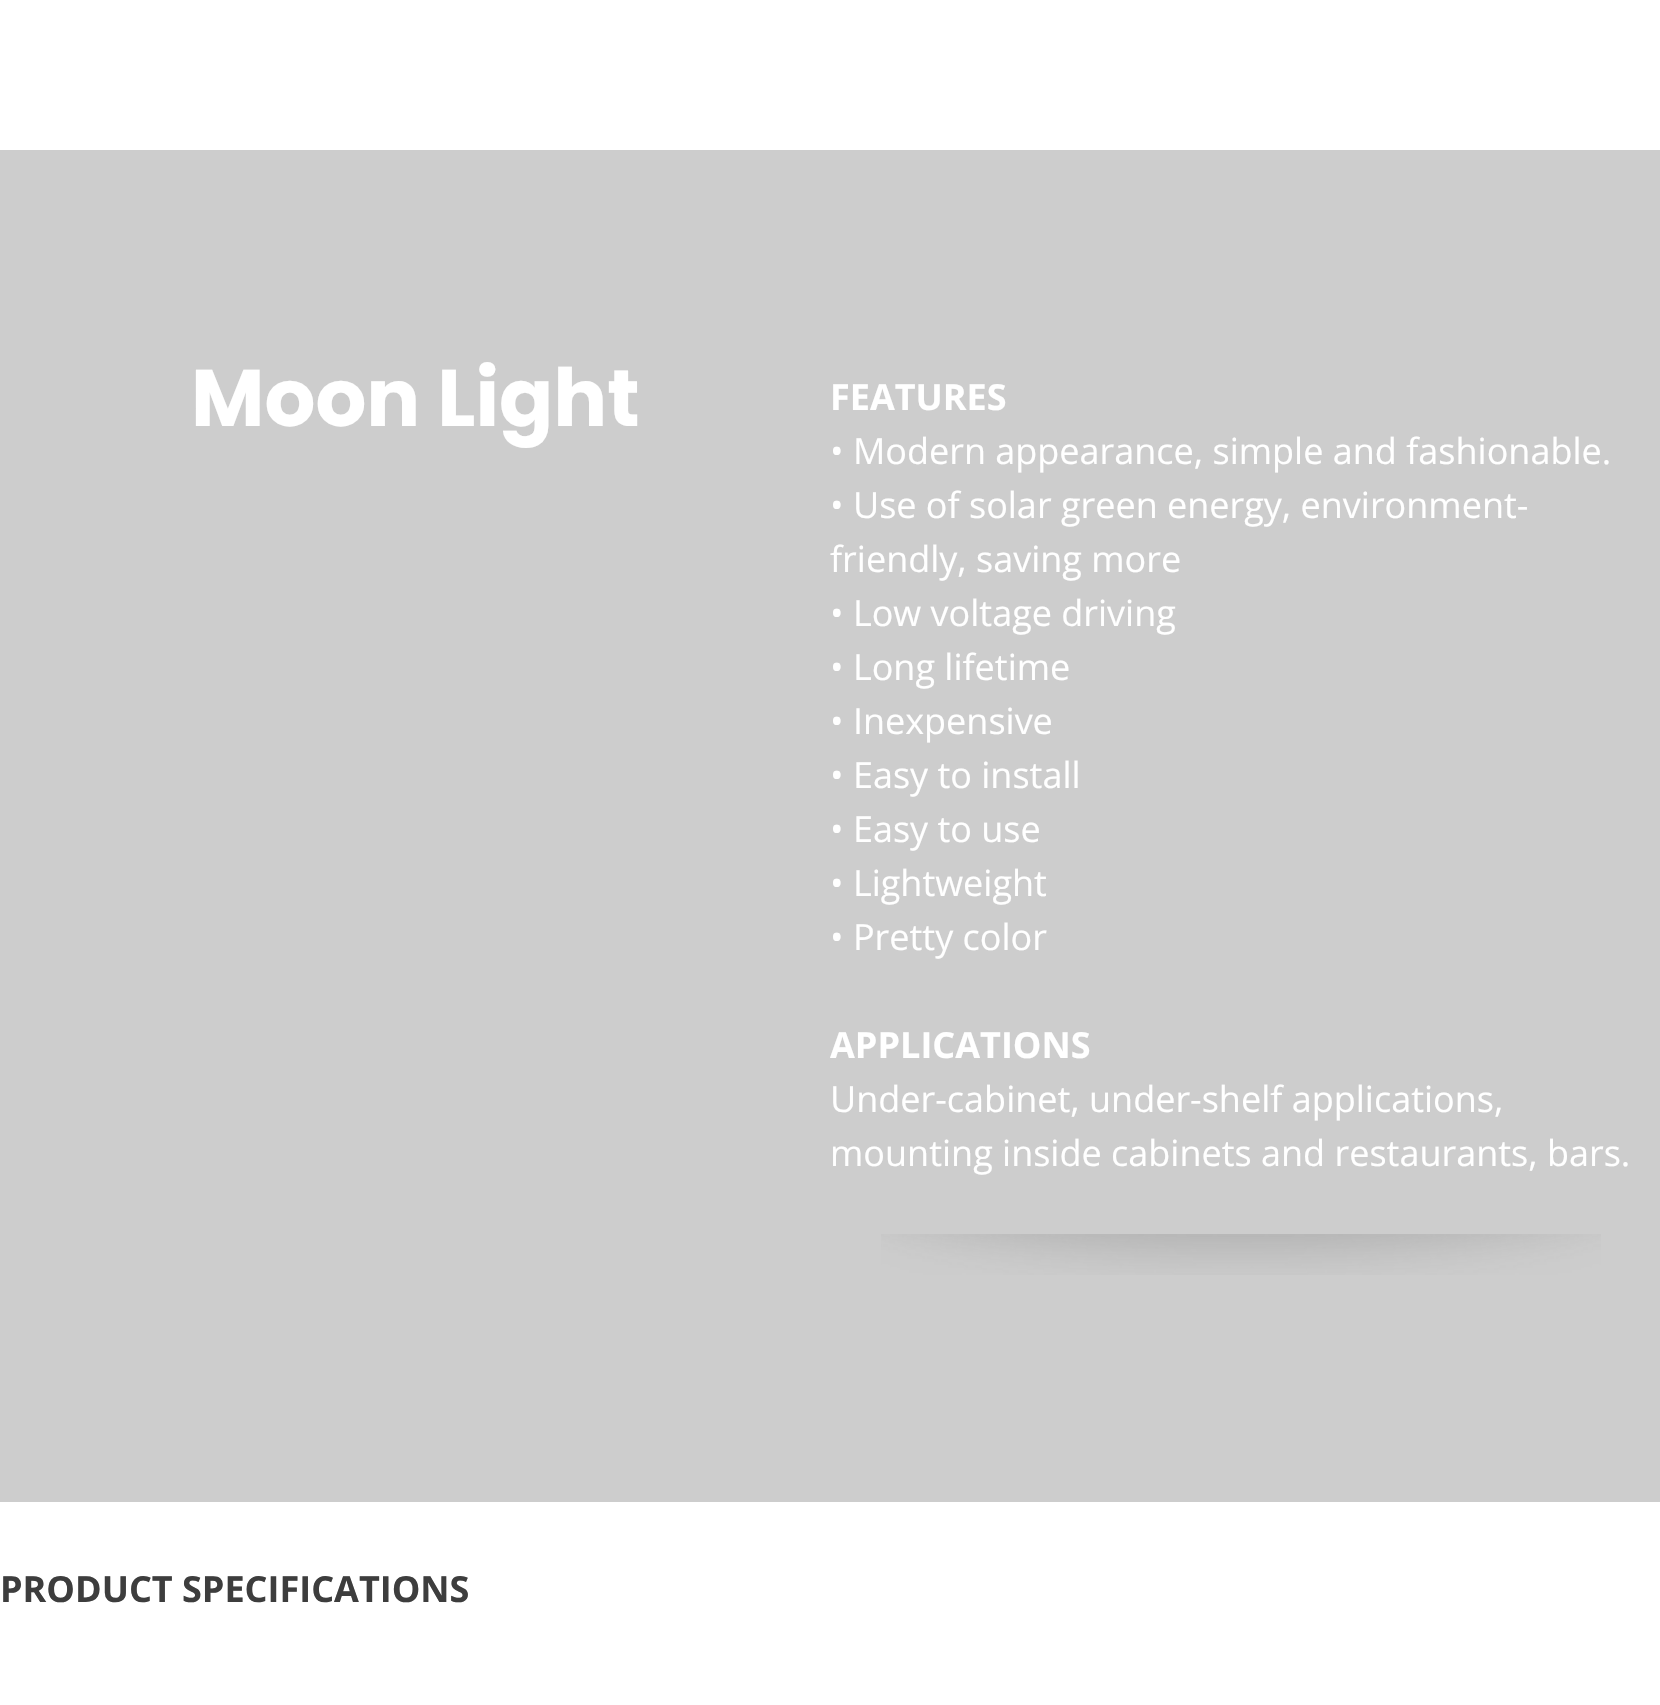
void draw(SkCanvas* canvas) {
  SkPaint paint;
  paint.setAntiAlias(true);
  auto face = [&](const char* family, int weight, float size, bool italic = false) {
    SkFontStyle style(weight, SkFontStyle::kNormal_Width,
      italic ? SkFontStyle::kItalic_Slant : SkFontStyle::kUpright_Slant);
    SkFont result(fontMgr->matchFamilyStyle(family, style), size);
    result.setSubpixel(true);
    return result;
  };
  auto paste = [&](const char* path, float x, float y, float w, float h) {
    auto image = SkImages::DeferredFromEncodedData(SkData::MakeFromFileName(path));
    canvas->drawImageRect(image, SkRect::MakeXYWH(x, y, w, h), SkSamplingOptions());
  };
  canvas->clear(0xffffffff);
  paint.setColor(0xffcdcdcd);
  canvas->drawRect(SkRect::MakeXYWH(0, 150, 1660, 1352), paint);
  paste("img/1.png", 881, 1234, 720, 41);
  auto f0 = face("Poppins", 700, 80);
  paint.setColor(0xffffffff);
  canvas->drawString("Moon Light", 191, 426, f0, paint);
  auto f1 = face("Open Sans", 700, 36);
  canvas->drawString("FEATURES", 830, 410, f1, paint);
  auto f2 = face("Open Sans", 400, 36);
  {
    const struct { const char* s; float x, y; } items[] = {
      {"• Modern appearance, simple and fashionable.", 830, 464},
      {"• Use of solar green energy, environment-", 830, 518},
      {"friendly, saving more", 830, 572},
      {"• Low voltage driving", 830, 626},
      {"• Long lifetime", 830, 680},
      {"• Inexpensive", 830, 734},
      {"• Easy to install", 830, 788},
      {"• Easy to use", 830, 842},
      {"• Lightweight", 830, 896},
      {"• Pretty color", 830, 950},
    };
    for (auto [s, x, y] : items) {
      canvas->drawString(s, x, y, f2, paint);
    }
  }
  canvas->drawString("APPLICATIONS", 830, 1058, f1, paint);
  canvas->drawString("Under-cabinet, under-shelf applications,", 830, 1112, f2, paint);
  canvas->drawString("mounting inside cabinets and restaurants, bars.", 830, 1166, f2, paint);
  paint.setColor(0xff3d3d3d);
  canvas->drawString("PRODUCT SPECIFICATIONS", 0, 1602, f1, paint);
}
